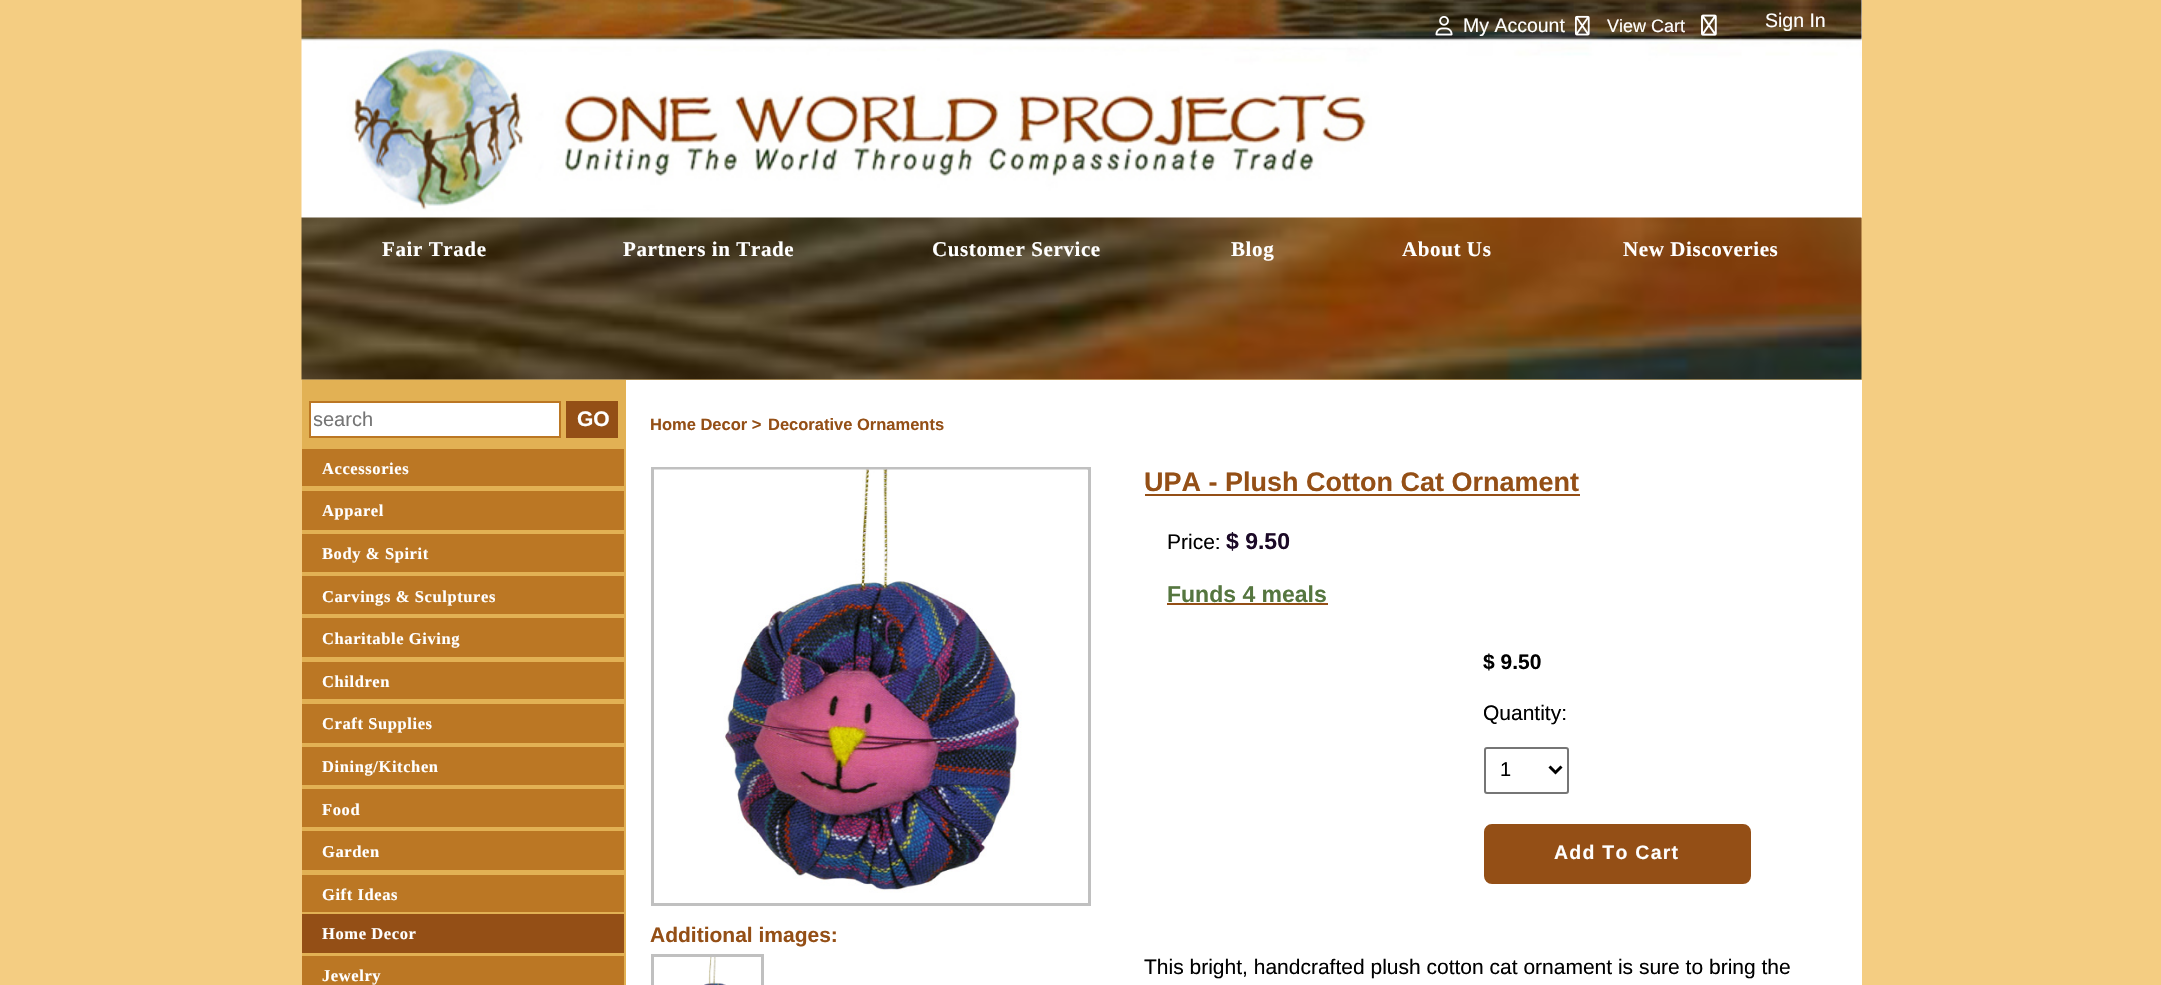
void draw(SkCanvas* canvas) {
  SkPaint paint;
  paint.setAntiAlias(true);
  auto face = [&](const char* family, int weight, float size, bool italic = false) {
    SkFontStyle style(weight, SkFontStyle::kNormal_Width,
      italic ? SkFontStyle::kItalic_Slant : SkFontStyle::kUpright_Slant);
    SkFont result(fontMgr->matchFamilyStyle(family, style), size);
    result.setSubpixel(true);
    return result;
  };
  auto writeSpaced = [&](const char* s, float x, float y, const SkFont& font, const SkPaint& ink, float letter, float word) {
    std::vector<SkGlyphID> glyphs(font.countText(s, strlen(s), SkTextEncoding::kUTF8));
    std::vector<float> xs(glyphs.size());
    font.textToGlyphs(s, strlen(s), SkTextEncoding::kUTF8, glyphs);
    font.getXPos(glyphs, xs, x);
    float extra = 0;
    for (size_t i = 0; i < glyphs.size(); i++) {
      xs[i] += extra;
      extra += letter + word * (glyphs[i] == font.unicharToGlyph(' '));
    }
    canvas->drawTextBlob(SkTextBlob::MakeFromPosHGlyphs(glyphs, xs, y, font), 0, 0, ink);
  };
  auto paste = [&](const char* path, float x, float y, float w, float h) {
    auto image = SkImages::DeferredFromEncodedData(SkData::MakeFromFileName(path));
    canvas->drawImageRect(image, SkRect::MakeXYWH(x, y, w, h), SkSamplingOptions());
  };
  auto shape = [&](const char* data, bool evenOdd = false) {
    SkPath result = *SkParsePath::FromSVGString(data);
    if (evenOdd) result.setFillType(SkPathFillType::kEvenOdd);
    return result;
  };
  canvas->clear(0xfff4cd82);
  paint.setColor(0xffffffff);
  canvas->drawRect(SkRect::MakeXYWH(302, 0, 1560, 218), paint);
  paste("img/1.png", 301, 0, 1561, 218);
  paste("img/2.png", 1435, 16, 18, 20);
  paste("img/3.png", 1575, 15, 15, 21);
  paste("img/4.png", 1701, 14, 16, 22);
  paste("img/5.png", 301, 217, 1561, 163);
  canvas->drawRect(SkRect::MakeXYWH(626, 380, 1236, 605), paint);
  paint.setColor(0xffe2b154);
  canvas->drawRect(SkRect::MakeXYWH(302, 380, 324, 605), paint);
  paint.setColor(0xffffffff);
  canvas->drawRect(SkRect::MakeXYWH(310, 402, 250, 35), paint);
  paint.setStroke(true);
  paint.setStrokeWidth(2);
  paint.setColor(0xffbb7724);
  canvas->drawRect(SkRect::MakeXYWH(310, 402, 250, 35), paint);
  paint.setStroke(false);
  {
    const struct { float x, y, w, h; SkColor color; } items[] = {
      {566, 401, 52, 37, 0xff944f16},
      {302, 449, 322, 536, 0xffbb7724},
      {302, 486, 322, 5, 0xffe2b154},
      {302, 530, 322, 4, 0xffe2b154},
      {302, 572, 322, 4, 0xffe2b154},
      {302, 614, 322, 4, 0xffe2b154},
      {302, 657, 322, 5, 0xffe2b154},
      {302, 699, 322, 5, 0xffe2b154},
      {302, 743, 322, 4, 0xffe2b154},
      {302, 785, 322, 4, 0xffe2b154},
      {302, 827, 322, 4, 0xffe2b154},
      {302, 870, 322, 5, 0xffe2b154},
      {302, 912, 322, 2, 0xffe2b154},
      {302, 914, 322, 39, 0xff944f16},
      {302, 953, 322, 3, 0xffe2b154},
    };
    for (auto [x, y, w, h, color] : items) {
      paint.setColor(color);
      canvas->drawRect(SkRect::MakeXYWH(x, y, w, h), paint);
    }
  }
  paint.setStroke(true);
  paint.setStrokeWidth(3);
  paint.setColor(0xffc0c0c0);
  canvas->drawRect(SkRect::MakeXYWH(652.5f, 468.5f, 437, 436), paint);
  paste("img/6.png", 654, 469, 434, 424);
  canvas->drawRect(SkRect::MakeXYWH(652.5f, 955.5f, 110, 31), paint);
  paste("img/7.png", 704, 957, 22, 28);
  paint.setStroke(false);
  paint.setColor(0xff944f16);
  canvas->drawRect(SkRect::MakeXYWH(1145, 494, 435, 2), paint);
  canvas->drawRect(SkRect::MakeXYWH(1167, 603, 161, 2), paint);
  paint.setStroke(true);
  paint.setStrokeWidth(2);
  paint.setColor(0xff767676);
  canvas->drawRoundRect(SkRect::MakeXYWH(1485, 748, 83, 45), 2, 2, paint);
  paint.setStrokeWidth(3);
  paint.setColor(0xff000000);
  canvas->drawPath(shape("M1549.5 766.5L1555.5 772.5L1561.5 766.5"), paint);
  paint.setStroke(false);
  paint.setColor(0xff944f16);
  canvas->drawRoundRect(SkRect::MakeXYWH(1485, 825, 265, 58), 7, 7, paint);
  paint.setStroke(true);
  paint.setStrokeWidth(2);
  canvas->drawRoundRect(SkRect::MakeXYWH(1485, 825, 265, 58), 7, 7, paint);
  auto f0 = face("Liberation Sans", 400, 19.5f);
  paint.setStroke(false);
  paint.setColor(0xffffffff);
  canvas->drawString("My Account", 1463, 32, f0, paint);
  auto f1 = face("Liberation Sans", 400, 18);
  canvas->drawString("View Cart", 1607, 32, f1, paint);
  canvas->drawString("Sign In", 1765, 27, f0, paint);
  auto f2 = face("Liberation Serif", 700, 21);
  {
    const struct { const char* s; float x, y; } items[] = {
      {"Fair Trade", 382, 256},
      {"Partners in Trade", 623, 256},
      {"Customer Service", 932, 256},
      {"Blog", 1231, 256},
      {"About Us", 1402, 256},
      {"New Discoveries", 1623, 256},
    };
    for (auto [s, x, y] : items) {
      writeSpaced(s, x, y, f2, paint, 0.6f, 0);
    }
  }
  canvas->save();
  canvas->clipRect(SkRect::MakeXYWH(314, 408, 243, 23));
  auto f3 = face("Liberation Sans", 400, 20);
  paint.setColor(0xff757575);
  canvas->drawString("search", 313, 426, f3, paint);
  canvas->restore();
  auto f4 = face("Liberation Sans", 700, 21);
  paint.setColor(0xffffffff);
  canvas->drawString("GO", 577, 426, f4, paint);
  auto f5 = face("Liberation Serif", 700, 16.5f);
  {
    const struct { const char* s; float x, y; } items[] = {
      {"Accessories", 322, 474},
      {"Apparel", 322, 516},
      {"Body & Spirit", 322, 559},
      {"Carvings & Sculptures", 322, 602},
      {"Charitable Giving", 322, 644},
      {"Children", 322, 687},
      {"Craft Supplies", 322, 729},
      {"Dining/Kitchen", 322, 772},
      {"Food", 322, 815},
      {"Garden", 322, 857},
      {"Gift Ideas", 322, 900},
      {"Home Decor", 322, 939},
      {"Jewelry", 322, 981},
    };
    for (auto [s, x, y] : items) {
      writeSpaced(s, x, y, f5, paint, 0.6f, 0);
    }
  }
  auto f6 = face("Liberation Sans", 700, 16.5f);
  paint.setColor(0xff944f16);
  canvas->drawString("Home Decor >", 650, 430, f6, paint);
  canvas->drawString("Decorative Ornaments", 768, 430, f6, paint);
  canvas->drawString("Additional images:", 650, 942, f4, paint);
  auto f7 = face("Liberation Sans", 700, 27);
  canvas->drawString("UPA - Plush Cotton Cat Ornament", 1144, 491, f7, paint);
  auto f8 = face("Liberation Sans", 400, 21);
  paint.setColor(0xff000000);
  canvas->drawString("Price:", 1167, 549, f8, paint);
  auto f9 = face("Liberation Sans", 700, 23);
  paint.setColor(0xff1b0927);
  canvas->drawString("$ 9.50", 1226, 549, f9, paint);
  paint.setColor(0xff55763f);
  canvas->drawString("Funds 4 meals", 1167, 602, f9, paint);
  paint.setColor(0xff000000);
  canvas->drawString("$ 9.50", 1483, 669, f4, paint);
  canvas->drawString("Quantity:", 1483, 720, f8, paint);
  canvas->drawString("1", 1500, 776, f3, paint);
  auto f10 = face("Liberation Sans", 700, 19.5f);
  paint.setColor(0xffffffff);
  writeSpaced("Add To Cart", 1554, 859, f10, paint, 1.25f, 0);
  paint.setColor(0xff000000);
  canvas->drawString("This bright, handcrafted plush cotton cat ornament is sure to bring the", 1144, 974, f8, paint);
}
